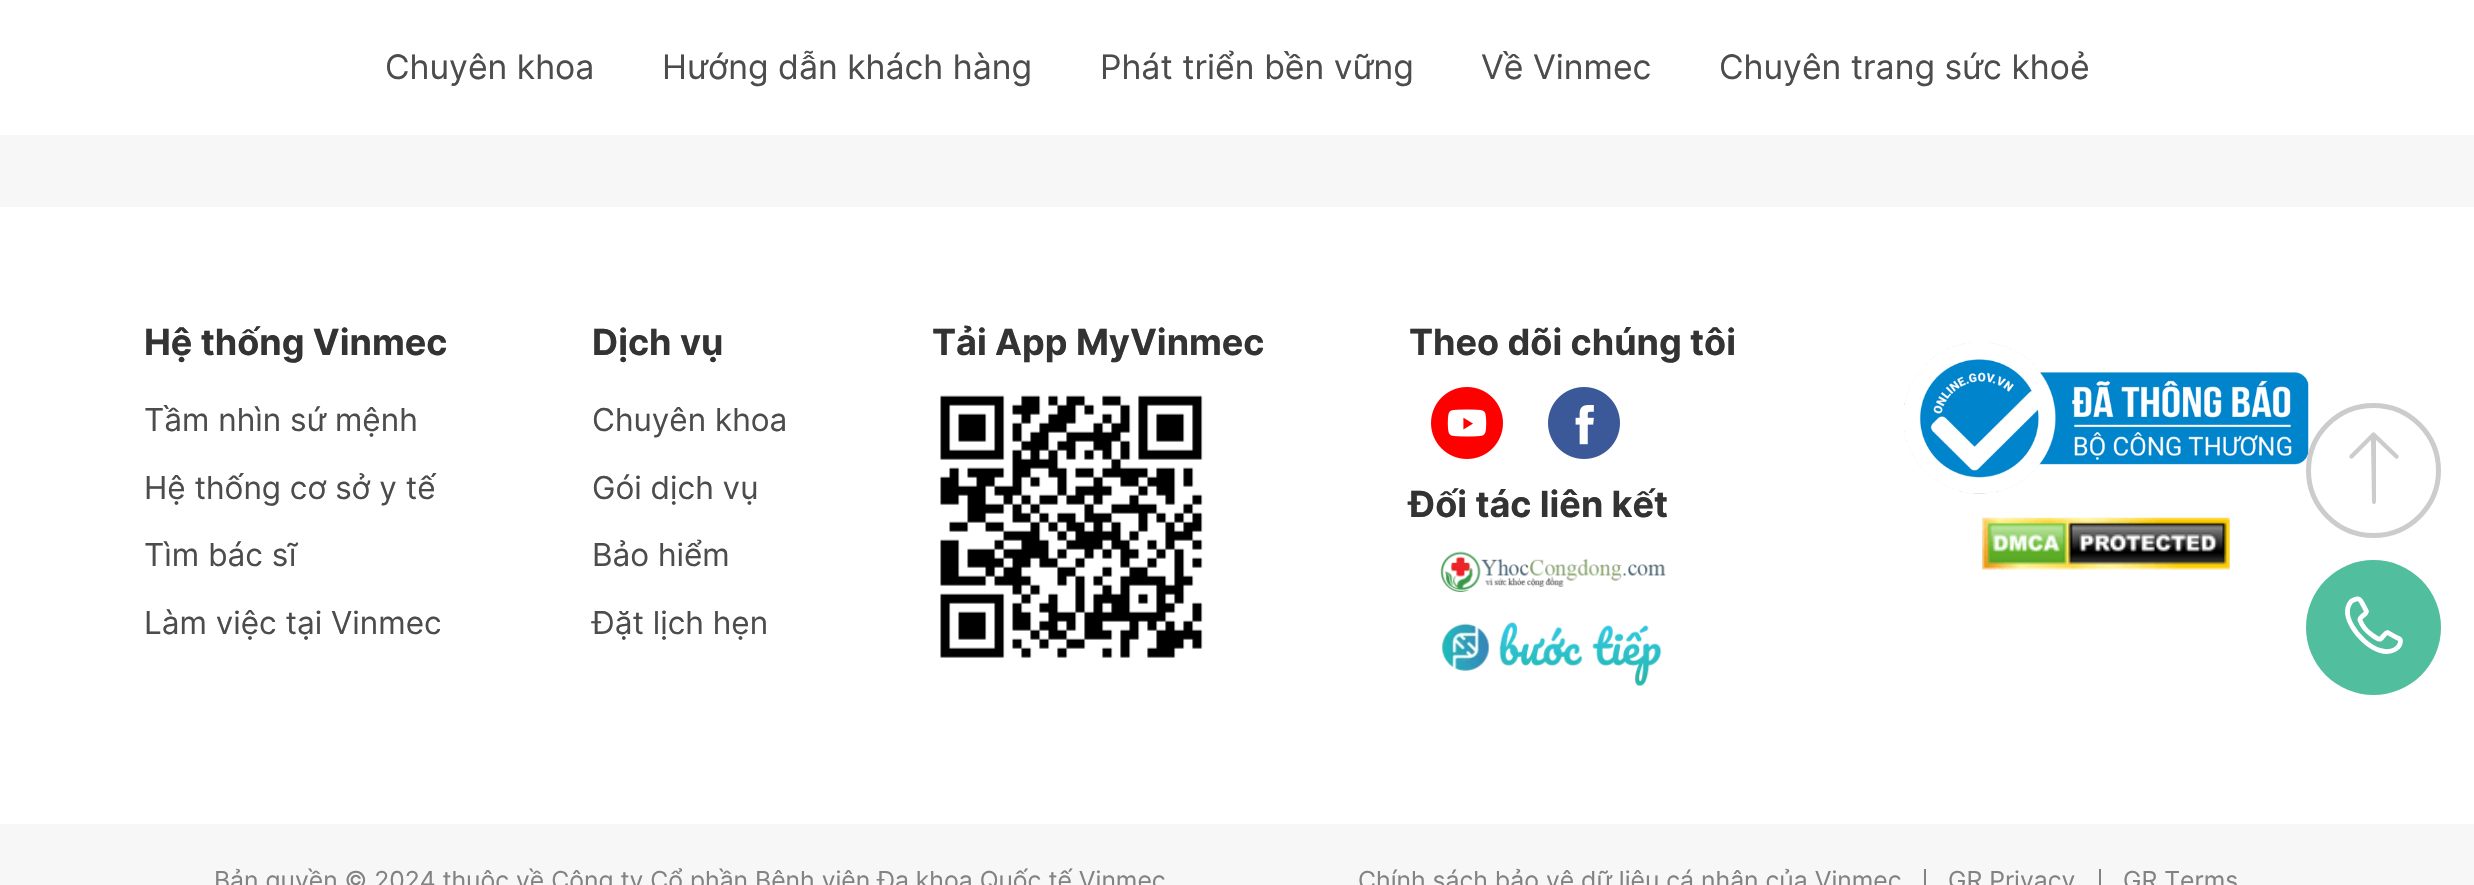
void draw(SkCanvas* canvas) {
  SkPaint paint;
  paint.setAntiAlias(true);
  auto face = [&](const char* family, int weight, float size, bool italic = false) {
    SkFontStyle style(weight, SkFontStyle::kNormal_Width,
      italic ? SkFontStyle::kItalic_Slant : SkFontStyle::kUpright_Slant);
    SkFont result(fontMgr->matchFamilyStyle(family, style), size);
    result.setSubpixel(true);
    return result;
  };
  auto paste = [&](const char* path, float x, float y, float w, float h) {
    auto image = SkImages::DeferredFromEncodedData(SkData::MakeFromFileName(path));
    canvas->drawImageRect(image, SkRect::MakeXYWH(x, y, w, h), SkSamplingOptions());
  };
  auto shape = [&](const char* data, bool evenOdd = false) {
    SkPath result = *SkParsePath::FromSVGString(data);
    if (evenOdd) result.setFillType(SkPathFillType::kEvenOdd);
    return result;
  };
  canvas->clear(0xfff7f7f7);
  paint.setColor(0xffffffff);
  canvas->drawRect(SkRect::MakeXYWH(0, 0, 2474, 135), paint);
  canvas->drawRect(SkRect::MakeXYWH(0, 207, 2474, 617), paint);
  paste("img/1.png", 940, 395, 263, 263);
  paste("img/2.png", 1431, 387, 72, 72);
  paste("img/3.png", 1548, 387, 72, 72);
  paste("img/4.png", 1440, 551, 226, 41);
  paste("img/5.png", 1442, 622, 220, 64);
  paste("img/6.png", 1904, 342, 405, 152);
  paste("img/7.png", 1982, 517, 248, 53);
  canvas->drawCircle(2373.5f, 470.5f, 65, paint);
  paint.setStroke(true);
  paint.setStrokeWidth(5);
  paint.setColor(0xffcccccc);
  canvas->drawCircle(2373.5f, 470.5f, 65, paint);
  paint.setStroke(false);
  canvas->drawPath(shape("M2398 455L2375 433C2374 432 2373 432 2372 433L2350 455C2349 456 2349 457 2350 458C2351 459 2352 459 2353 458L2371 440L2372 502C2372 504 2374 504 2375 504L2376 502V440L2395 458L2397 459C2399 458 2399 456 2398 455Z"), paint);
  paint.setColor(0xff51be9d);
  canvas->drawCircle(2373.5f, 627.5f, 67.5f, paint);
  paint.setStroke(true);
  paint.setStrokeWidth(4.8f);
  paint.setColor(0xffffffff);
  canvas->drawPath(shape("M2400.5 640.5C2400.5 644.5 2398.5 647.5 2395 649.5C2377 660 2346 628.5 2347.5 610.5C2347.5 607 2350 601 2353.5 600C2361 597 2360.5 601 2364 606.5L2366.5 611.5C2366 614 2363.5 615 2362 616.5C2361 617.5 2359.5 618.5 2360 620C2362 626 2367 631.5 2372 635C2372.5 635.5 2379 640 2380.5 639C2383 637.5 2384.5 633 2387.5 632.5L2396.5 637.5C2398 638 2400.5 639 2400.5 640.5Z"), paint);
  paint.setStroke(false);
  paint.setColor(0xff828282);
  canvas->drawRect(SkRect::MakeXYWH(1924, 869, 2, 16), paint);
  canvas->drawRect(SkRect::MakeXYWH(2099, 869, 2, 16), paint);
  auto f0 = face("Inter", 400, 33.75f);
  paint.setColor(0xff4d4c4c);
  {
    const struct { const char* s; float x, y; } items[] = {
      {"Chuyên khoa", 385, 79},
      {"Hướng dẫn khách hàng", 662, 79},
      {"Phát triển bền vững", 1100, 79},
      {"Về Vinmec", 1481, 79},
      {"Chuyên trang sức khoẻ", 1719, 79},
    };
    for (auto [s, x, y] : items) {
      canvas->drawString(s, x, y, f0, paint);
    }
  }
  auto f1 = face("Inter", 700, 36);
  paint.setColor(0xff333333);
  canvas->drawString("Hệ thống Vinmec", 144, 355, f1, paint);
  auto f2 = face("Inter", 400, 31.5f);
  paint.setColor(0xff4d4c4c);
  {
    const struct { const char* s; float x, y; } items[] = {
      {"Tầm nhìn sứ mệnh", 144, 431},
      {"Hệ thống cơ sở y tế", 144, 499},
      {"Tìm bác sĩ", 144, 566},
      {"Làm việc tại Vinmec", 144, 634},
    };
    for (auto [s, x, y] : items) {
      canvas->drawString(s, x, y, f2, paint);
    }
  }
  paint.setColor(0xff333333);
  canvas->drawString("Dịch vụ", 592, 355, f1, paint);
  paint.setColor(0xff4d4c4c);
  {
    const struct { const char* s; float x, y; } items[] = {
      {"Chuyên khoa", 592, 431},
      {"Gói dịch vụ", 592, 499},
      {"Bảo hiểm", 592, 566},
      {"Đặt lịch hẹn", 592, 634},
    };
    for (auto [s, x, y] : items) {
      canvas->drawString(s, x, y, f2, paint);
    }
  }
  paint.setColor(0xff333333);
  {
    const struct { const char* s; float x, y; } items[] = {
      {"Tải App MyVinmec", 932, 355},
      {"Theo dõi chúng tôi", 1409, 355},
      {"Đối tác liên kết", 1409, 517},
    };
    for (auto [s, x, y] : items) {
      canvas->drawString(s, x, y, f1, paint);
    }
  }
  auto f3 = face("Inter", 400, 24.75f);
  paint.setColor(0xff828282);
  {
    const struct { const char* s; float x, y; } items[] = {
      {"Bản quyền © 2024 thuộc về Công ty Cổ phần Bệnh viện Đa khoa Quốc tế Vinmec", 214, 889},
      {"Chính sách bảo vệ dữ liệu cá nhân của Vinmec", 1358, 889},
      {"GR Privacy", 1948, 889},
      {"GR Terms", 2123, 889},
    };
    for (auto [s, x, y] : items) {
      canvas->drawString(s, x, y, f3, paint);
    }
  }
}
